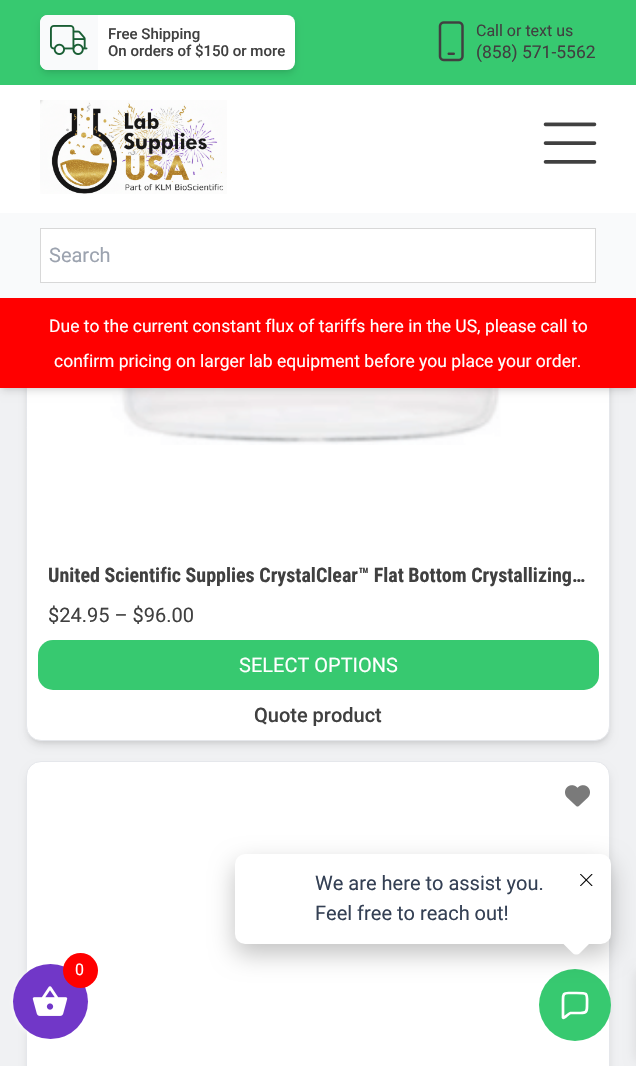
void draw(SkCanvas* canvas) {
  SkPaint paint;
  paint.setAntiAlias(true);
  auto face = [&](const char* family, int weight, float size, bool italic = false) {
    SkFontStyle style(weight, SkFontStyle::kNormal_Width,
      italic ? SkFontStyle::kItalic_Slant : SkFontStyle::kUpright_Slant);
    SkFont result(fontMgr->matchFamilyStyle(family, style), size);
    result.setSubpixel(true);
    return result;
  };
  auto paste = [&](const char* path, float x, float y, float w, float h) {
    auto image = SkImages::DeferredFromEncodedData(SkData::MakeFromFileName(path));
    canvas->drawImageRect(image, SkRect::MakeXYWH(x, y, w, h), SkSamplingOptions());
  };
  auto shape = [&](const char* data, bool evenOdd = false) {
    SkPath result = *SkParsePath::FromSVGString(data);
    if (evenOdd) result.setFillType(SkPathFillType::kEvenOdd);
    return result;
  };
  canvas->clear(0xfff0f1f3);
  paint.setColor(0x1a000000);
  paint.setMaskFilter(SkMaskFilter::MakeBlur(kNormal_SkBlurStyle, 2.5f));
  canvas->drawRoundRect(SkRect::MakeXYWH(29, 119, 579, 622), 13, 13, paint);
  paint.setMaskFilter(nullptr);
  paint.setMaskFilter(SkMaskFilter::MakeBlur(kNormal_SkBlurStyle, 4));
  canvas->drawRoundRect(SkRect::MakeXYWH(28, 120, 581, 625), 14, 14, paint);
  paint.setMaskFilter(nullptr);
  paint.setColor(0xffffffff);
  canvas->drawRoundRect(SkRect::MakeXYWH(26.5f, 114.5f, 583, 626), 14.5f, 14.5f, paint);
  paint.setStroke(true);
  paint.setStrokeWidth(1);
  paint.setColor(0xffe5e7eb);
  canvas->drawRoundRect(SkRect::MakeXYWH(26.5f, 114.5f, 583, 626), 14.5f, 14.5f, paint);
  paste("img/5.png", 37, 388, 567, 57);
  paint.setStroke(false);
  paint.setColor(0x1a000000);
  paint.setMaskFilter(SkMaskFilter::MakeBlur(kNormal_SkBlurStyle, 2.5f));
  canvas->drawRect(SkRect::MakeXYWH(3, 5, 631, 383), paint);
  paint.setMaskFilter(nullptr);
  paint.setMaskFilter(SkMaskFilter::MakeBlur(kNormal_SkBlurStyle, 4));
  canvas->drawRect(SkRect::MakeXYWH(1, 6, 634, 385), paint);
  paint.setMaskFilter(nullptr);
  paint.setColor(0xff37c970);
  canvas->drawRect(SkRect::MakeXYWH(0, 0, 636, 85), paint);
  paint.setColor(0x1a000000);
  paint.setMaskFilter(SkMaskFilter::MakeBlur(kNormal_SkBlurStyle, 2.5f));
  canvas->drawRoundRect(SkRect::MakeXYWH(43, 20, 250, 50), 5, 5, paint);
  paint.setMaskFilter(nullptr);
  paint.setMaskFilter(SkMaskFilter::MakeBlur(kNormal_SkBlurStyle, 4));
  canvas->drawRoundRect(SkRect::MakeXYWH(41, 21, 253, 53), 6, 6, paint);
  paint.setMaskFilter(nullptr);
  paint.setColor(0xffffffff);
  canvas->drawRoundRect(SkRect::MakeXYWH(40, 15, 255, 55), 8, 8, paint);
  paint.setColor(0xfff9fafb);
  canvas->drawPath(shape("M48 15H98V70H48C43.5 70 40 66.5 40 62V23C40 18.5 43.5 15 48 15Z"), paint);
  paste("img/1.png", 50, 25, 38, 30);
  paste("img/2.png", 438, 21, 26, 41);
  paint.setColor(0xffffffff);
  canvas->drawRect(SkRect::MakeXYWH(0, 85, 636, 128), paint);
  paste("img/3.png", 40, 100, 187, 94);
  paste("img/4.png", 543, 122, 54, 42);
  paint.setColor(0xfff9fafb);
  canvas->drawRect(SkRect::MakeXYWH(0, 213, 636, 85), paint);
  paint.setColor(0xffffffff);
  canvas->drawRect(SkRect::MakeXYWH(40.5f, 228.5f, 555, 54), paint);
  paint.setStroke(true);
  paint.setColor(0xffd8d8d8);
  canvas->drawRect(SkRect::MakeXYWH(40.5f, 228.5f, 555, 54), paint);
  paint.setStroke(false);
  paint.setColor(0xffff0000);
  canvas->drawRect(SkRect::MakeXYWH(0, 298, 636, 90), paint);
  paint.setColor(0xff37c970);
  canvas->drawRoundRect(SkRect::MakeXYWH(38, 640, 561, 50), 15, 15, paint);
  paint.setColor(0x1a000000);
  paint.setMaskFilter(SkMaskFilter::MakeBlur(kNormal_SkBlurStyle, 4));
  canvas->drawRoundRect(SkRect::MakeXYWH(28, 768, 581, 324), 14, 14, paint);
  paint.setMaskFilter(nullptr);
  paint.setColor(0xffffffff);
  canvas->drawRoundRect(SkRect::MakeXYWH(26.5f, 761.5f, 583, 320), 14.5f, 14.5f, paint);
  paint.setStroke(true);
  paint.setColor(0xffe5e7eb);
  canvas->drawRoundRect(SkRect::MakeXYWH(26.5f, 761.5f, 583, 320), 14.5f, 14.5f, paint);
  paste("img/6.png", 565, 785, 25, 22);
  paint.setStroke(false);
  paint.setColor(0xff37c970);
  canvas->drawCircle(575, 1005, 36, paint);
  paint.setStroke(true);
  paint.setStrokeWidth(2.7f);
  paint.setStrokeCap(SkPaint::kRound_Cap);
  paint.setStrokeJoin(SkPaint::kRound_Join);
  paint.setColor(0xffffffff);
  canvas->drawPath(shape("M563 999.5C563 994.5 563.5 993 568.5 993H575C589 993 587 992.5 587 1006.5C587 1012 586 1013 580.5 1013H570.5C568 1013.5 564 1019 563 1017.5Z"), paint);
  paint.setStroke(false);
  paint.setColor(0x3d000000);
  paint.setMaskFilter(SkMaskFilter::MakeBlur(kNormal_SkBlurStyle, 12.5f));
  canvas->drawRoundRect(SkRect::MakeXYWH(235, 864, 376, 90), 10, 10, paint);
  paint.setMaskFilter(nullptr);
  paint.setColor(0xffffffff);
  canvas->drawRoundRect(SkRect::MakeXYWH(235, 854, 376, 90), 10, 10, paint);
  canvas->drawPath(shape("M580 924.5L590.5 935C592.5 937 592.5 940.5 590.5 942.5L580 953C578 955 574.5 955 572.5 953L562 942.5C560 940.5 560 937 562 935L572.5 924.5C574.5 922.5 578 922.5 580 924.5Z"), paint);
  paste("img/7.png", 580, 874, 13, 12);
  paint.setMaskFilter(SkMaskFilter::MakeBlur(kNormal_SkBlurStyle, 2.5f));
  canvas->drawRoundRect(SkRect::MakeXYWH(13, 965, 75, 75), 37.5f, 37.5f, paint);
  paint.setMaskFilter(nullptr);
  paint.setColor(0xff7137c8);
  canvas->drawCircle(50.5f, 1001.5f, 37.5f, paint);
  paste("img/8.png", 32, 986, 36, 30);
  paint.setColor(0xffff0000);
  canvas->drawCircle(80.5f, 970.5f, 17.5f, paint);
  paint.setColor(0x1a000000);
  paint.setMaskFilter(SkMaskFilter::MakeBlur(kNormal_SkBlurStyle, 6));
  canvas->drawRect(SkRect::MakeXYWH(636, 971, 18, 89), paint);
  paint.setMaskFilter(nullptr);
  auto f0 = face("Roboto", 500, 15);
  paint.setColor(0xff404040);
  canvas->drawString("Free Shipping", 108, 39, f0, paint);
  canvas->drawString("On orders of $150 or more", 108, 56, f0, paint);
  auto f1 = face("Roboto", 400, 16);
  canvas->drawString("Call or text us", 476, 36, f1, paint);
  auto f2 = face("Roboto", 400, 17.5f);
  canvas->drawString("(858) 571-5562", 476, 58, f2, paint);
  auto f3 = face("Roboto", 400, 20);
  paint.setColor(0xff9ca3af);
  canvas->drawString("Search", 49, 262, f3, paint);
  paint.setColor(0xffffffff);
  canvas->drawString("Due to the current constant flux of tariffs here in the US, please call to", 49, 332, f2, paint);
  canvas->drawString("confirm pricing on larger lab equipment before you place your order.", 54, 367, f2, paint);
  auto f4 = face("Roboto Condensed", 700, 20);
  paint.setColor(0xff404040);
  canvas->drawString("United Scientific Supplies CrystalClear™ Flat Bottom Crystallizing…", 48, 582, f4, paint);
  canvas->drawString("$24.95 – $96.00", 48, 622, f3, paint);
  paint.setColor(0xffffffff);
  canvas->drawString("SELECT OPTIONS", 239, 672, f3, paint);
  auto f5 = face("Roboto", 500, 20);
  paint.setColor(0xff404040);
  canvas->drawString("Quote product", 254, 722, f5, paint);
  paint.setColor(0xff344054);
  canvas->drawString("We are here to assist you.", 315, 890, f3, paint);
  canvas->drawString("Feel free to reach out!", 315, 920, f3, paint);
  paint.setColor(0xffffffff);
  canvas->drawString("0", 75, 975, f1, paint);
}
